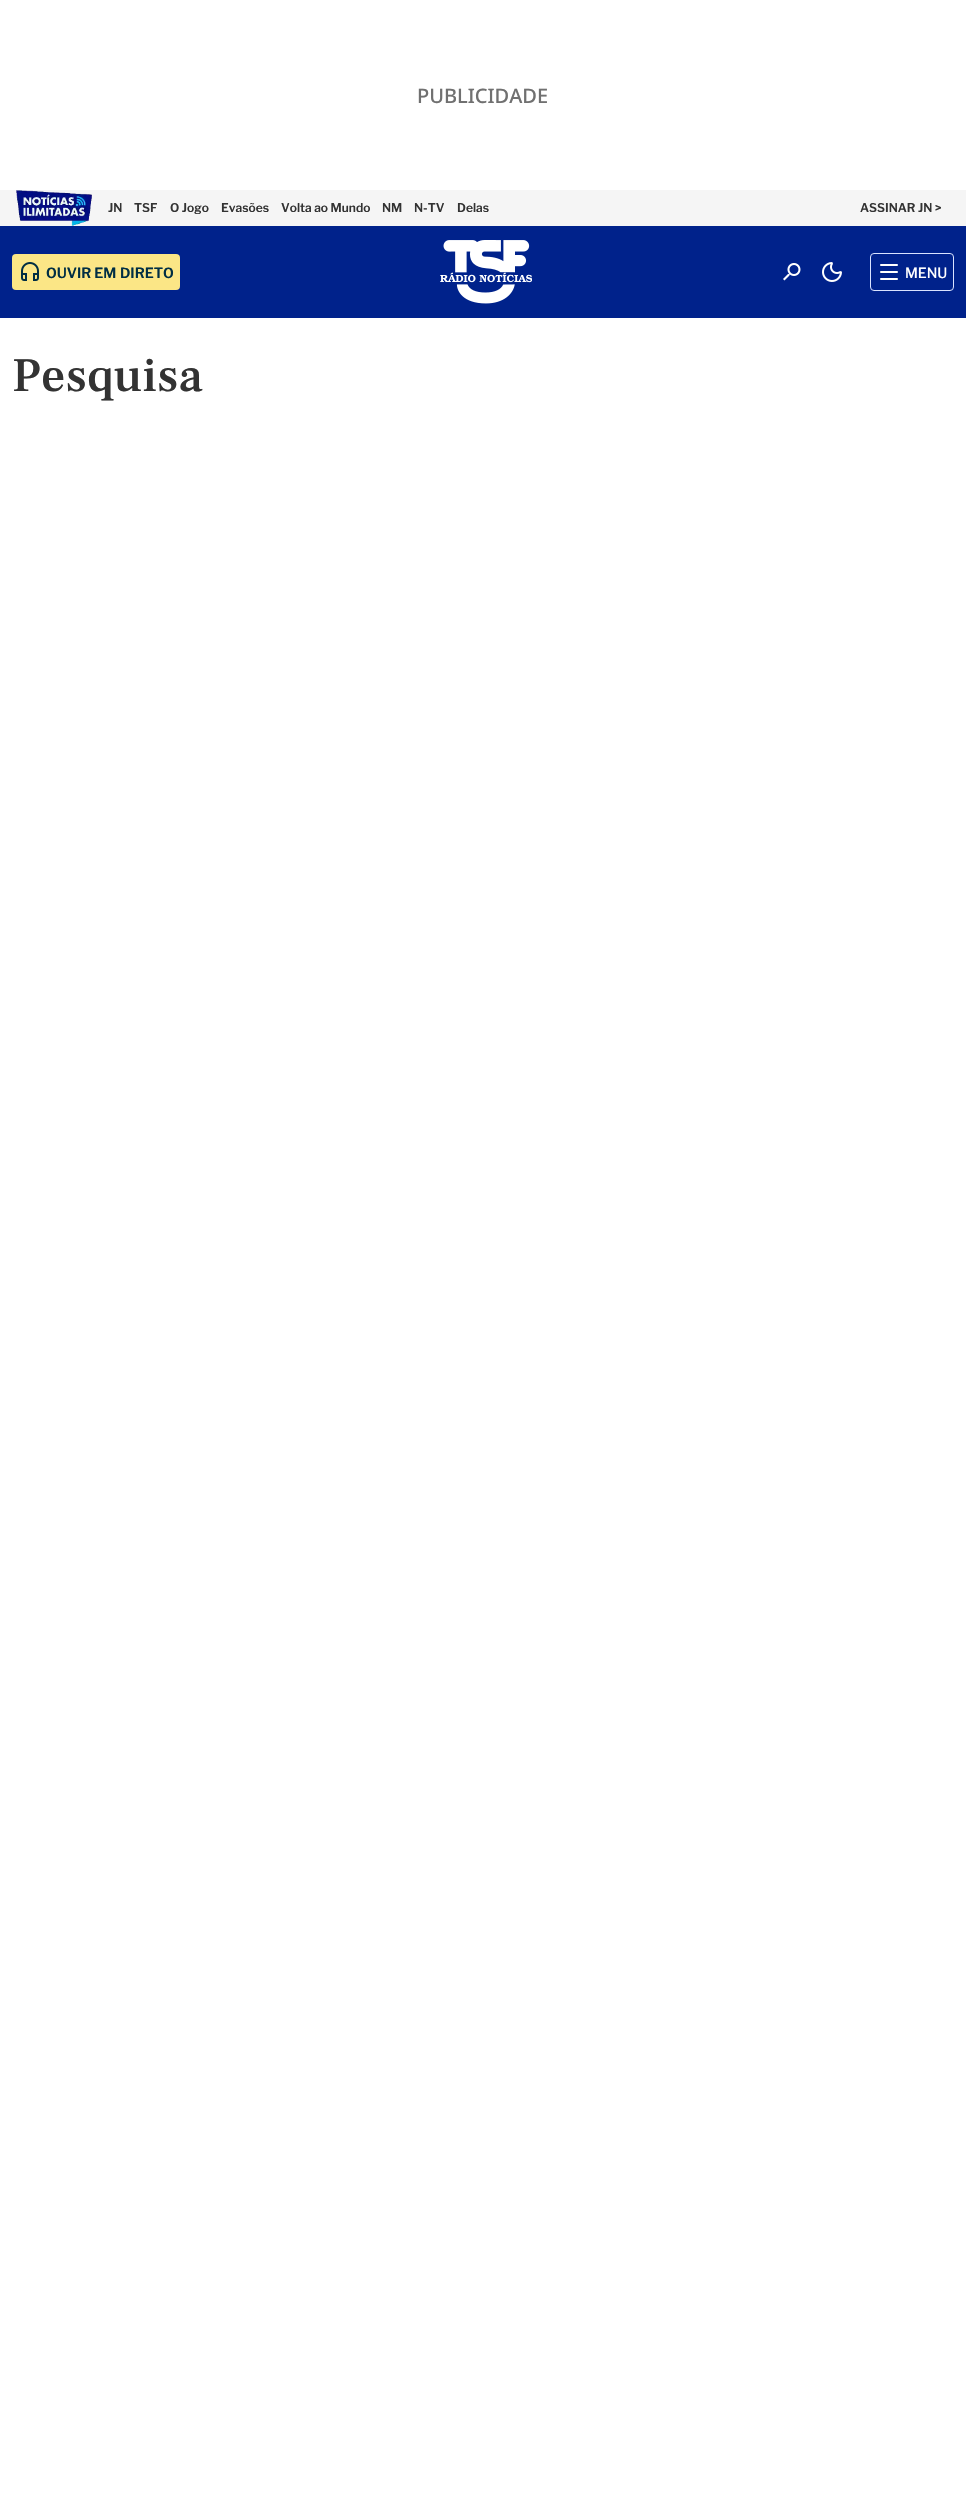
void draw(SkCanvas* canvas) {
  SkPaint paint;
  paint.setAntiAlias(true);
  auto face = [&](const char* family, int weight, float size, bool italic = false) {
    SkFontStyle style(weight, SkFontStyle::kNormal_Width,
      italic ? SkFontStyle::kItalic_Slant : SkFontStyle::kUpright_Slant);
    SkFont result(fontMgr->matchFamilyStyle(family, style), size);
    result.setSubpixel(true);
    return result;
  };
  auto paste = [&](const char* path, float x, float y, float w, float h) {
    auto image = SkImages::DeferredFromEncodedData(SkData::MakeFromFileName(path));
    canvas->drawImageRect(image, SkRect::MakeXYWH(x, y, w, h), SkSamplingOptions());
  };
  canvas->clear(0xffffffff);
  paint.setColor(0xfff5f5f5);
  canvas->drawRect(SkRect::MakeXYWH(0, 190, 966, 36), paint);
  paste("img/1.png", 16, 190, 76, 36);
  paint.setColor(0xff00228b);
  canvas->drawRect(SkRect::MakeXYWH(0, 226, 966, 92), paint);
  paint.setColor(0xfffbe686);
  canvas->drawRoundRect(SkRect::MakeXYWH(12, 254, 168, 36), 4, 4, paint);
  paste("img/2.png", 21, 262, 18, 19);
  paste("img/3.png", 440, 240, 92, 64);
  paste("img/4.png", 783, 263, 18, 18);
  paste("img/5.png", 822, 262, 20, 20);
  paint.setStroke(true);
  paint.setStrokeWidth(1);
  paint.setColor(0xffdae3ff);
  canvas->drawRoundRect(SkRect::MakeXYWH(870.5f, 253.5f, 83, 37), 3.5f, 3.5f, paint);
  paste("img/6.png", 880, 264, 18, 16);
  auto f0 = face("Noto Sans", 500, 20);
  paint.setStroke(false);
  paint.setColor(0xff707070);
  canvas->drawString("PUBLICIDADE", 417, 103, f0, paint);
  auto f1 = face("Libre Franklin", 600, 12);
  paint.setColor(0xff333333);
  {
    const struct { const char* s; float x, y; } items[] = {
      {"JN", 108, 212},
      {"TSF", 134, 212},
      {"O Jogo", 170, 212},
      {"Evasões", 221, 212},
      {"Volta ao Mundo", 281, 212},
      {"NM", 382, 212},
      {"N-TV", 414, 212},
      {"Delas", 457, 212},
      {"ASSINAR JN >", 860, 212},
    };
    for (auto [s, x, y] : items) {
      canvas->drawString(s, x, y, f1, paint);
    }
  }
  auto f2 = face("Libre Franklin", 600, 14);
  paint.setColor(0xff002e44);
  canvas->drawString("OUVIR EM", 46, 278, f2, paint);
  canvas->drawString("DIRETO", 120, 278, f2, paint);
  auto f3 = face("Libre Franklin", 500, 14);
  paint.setColor(0xffffffff);
  canvas->drawString("MENU", 905, 278, f3, paint);
  auto f4 = face("Frank Ruhl Libre", 500, 48);
  paint.setColor(0xff333333);
  canvas->drawString("Pesquisa", 12, 391, f4, paint);
}
